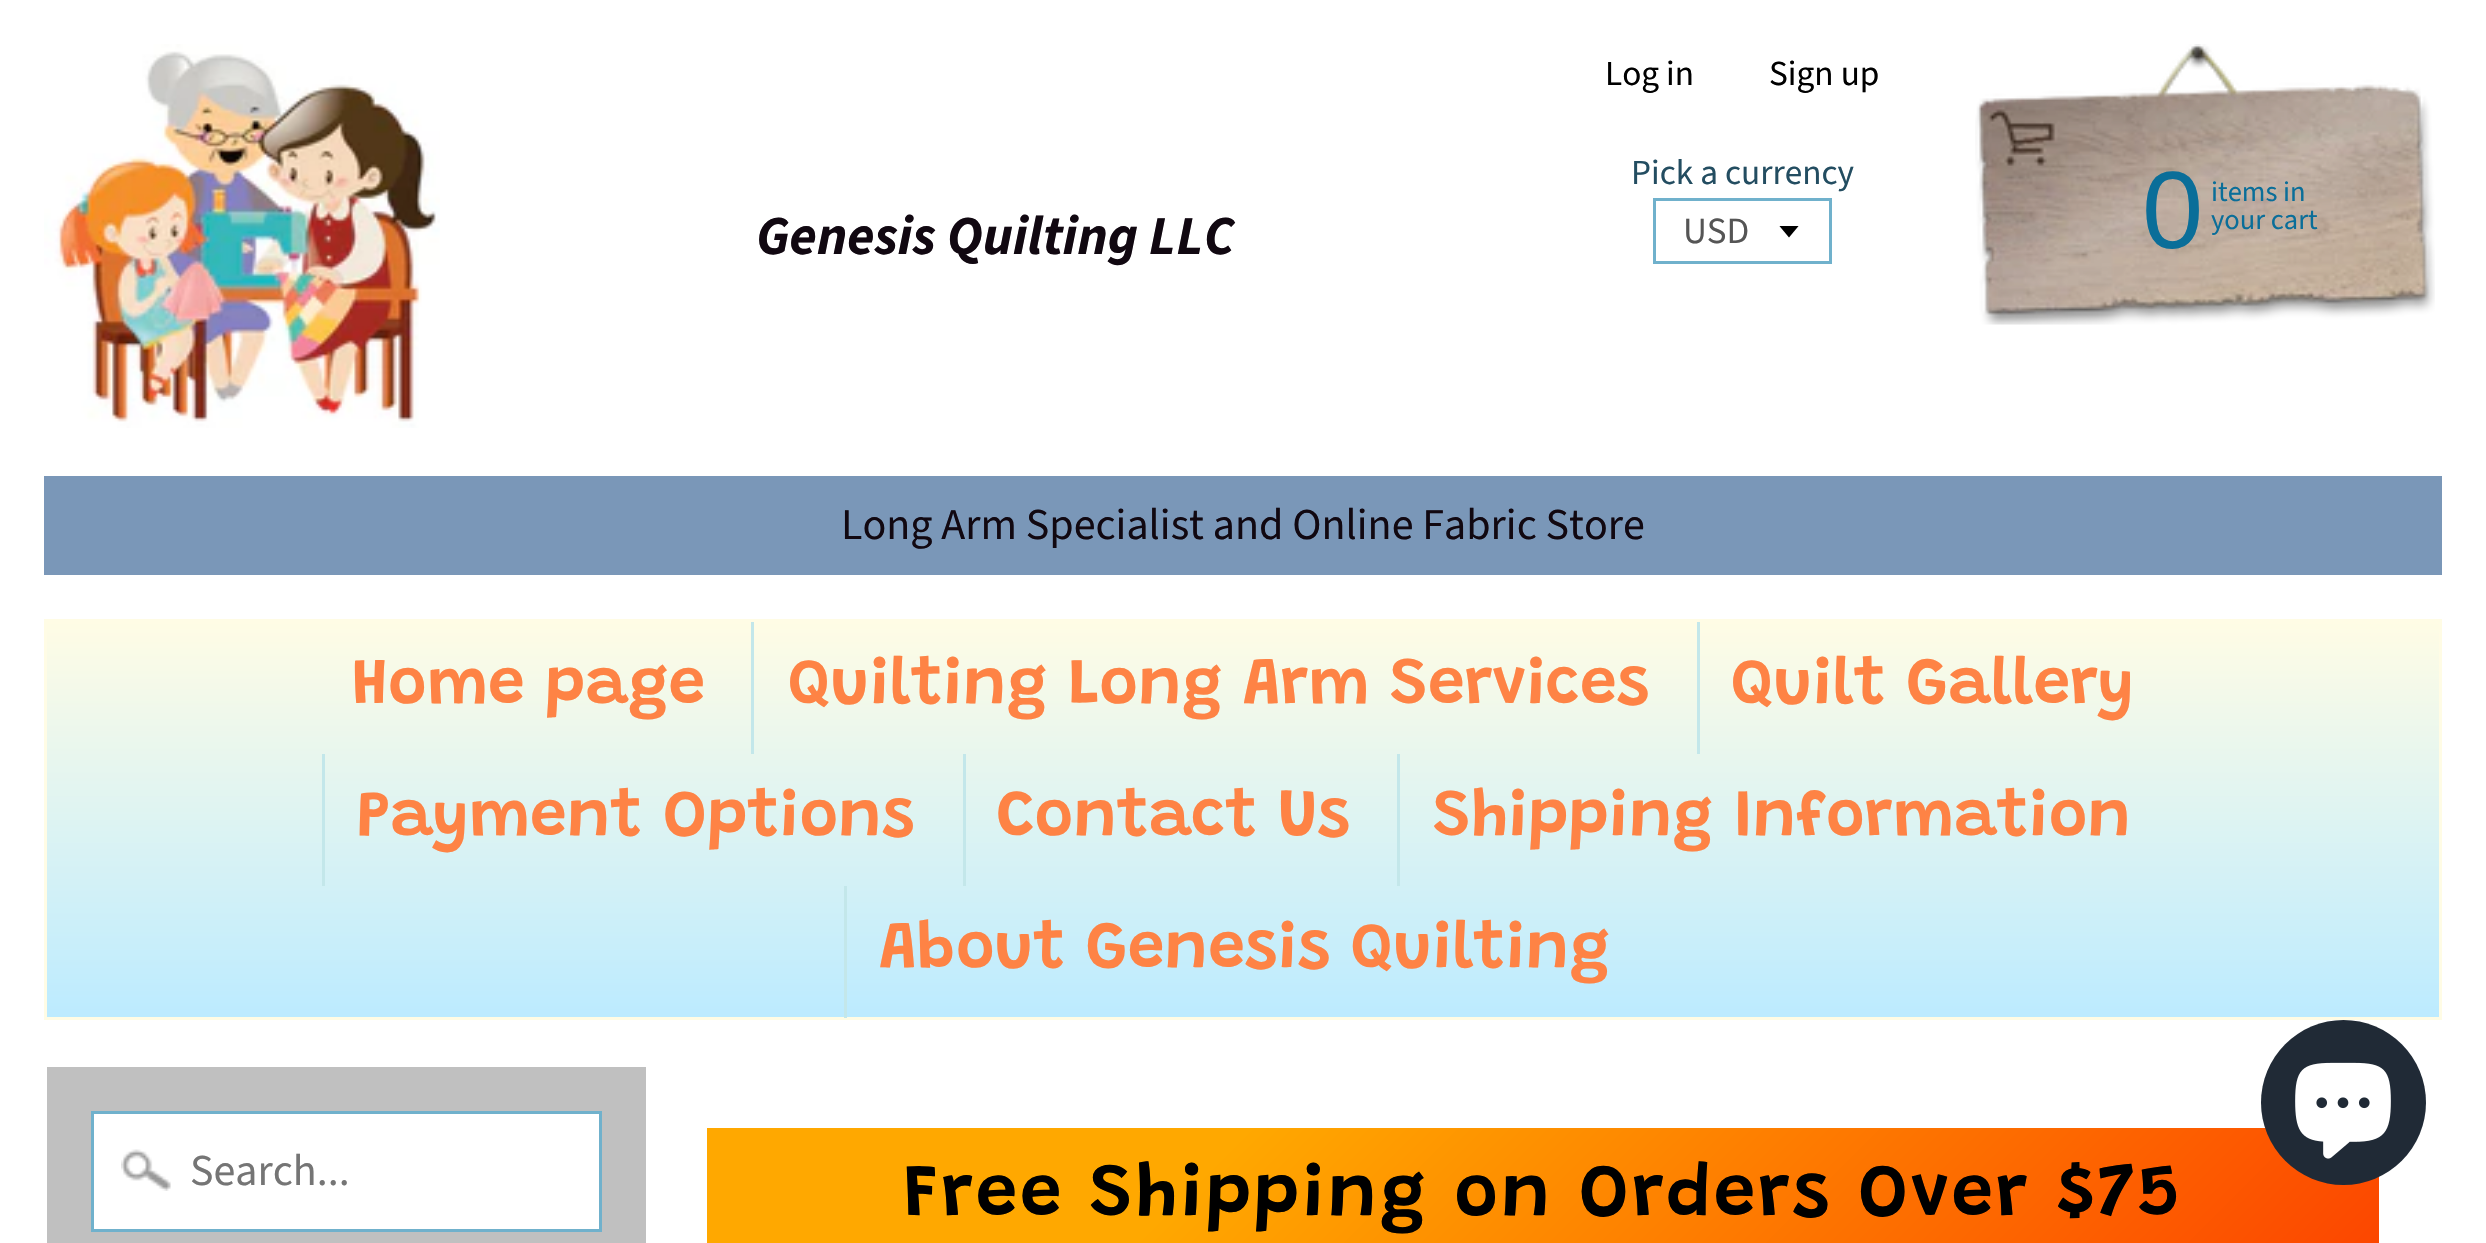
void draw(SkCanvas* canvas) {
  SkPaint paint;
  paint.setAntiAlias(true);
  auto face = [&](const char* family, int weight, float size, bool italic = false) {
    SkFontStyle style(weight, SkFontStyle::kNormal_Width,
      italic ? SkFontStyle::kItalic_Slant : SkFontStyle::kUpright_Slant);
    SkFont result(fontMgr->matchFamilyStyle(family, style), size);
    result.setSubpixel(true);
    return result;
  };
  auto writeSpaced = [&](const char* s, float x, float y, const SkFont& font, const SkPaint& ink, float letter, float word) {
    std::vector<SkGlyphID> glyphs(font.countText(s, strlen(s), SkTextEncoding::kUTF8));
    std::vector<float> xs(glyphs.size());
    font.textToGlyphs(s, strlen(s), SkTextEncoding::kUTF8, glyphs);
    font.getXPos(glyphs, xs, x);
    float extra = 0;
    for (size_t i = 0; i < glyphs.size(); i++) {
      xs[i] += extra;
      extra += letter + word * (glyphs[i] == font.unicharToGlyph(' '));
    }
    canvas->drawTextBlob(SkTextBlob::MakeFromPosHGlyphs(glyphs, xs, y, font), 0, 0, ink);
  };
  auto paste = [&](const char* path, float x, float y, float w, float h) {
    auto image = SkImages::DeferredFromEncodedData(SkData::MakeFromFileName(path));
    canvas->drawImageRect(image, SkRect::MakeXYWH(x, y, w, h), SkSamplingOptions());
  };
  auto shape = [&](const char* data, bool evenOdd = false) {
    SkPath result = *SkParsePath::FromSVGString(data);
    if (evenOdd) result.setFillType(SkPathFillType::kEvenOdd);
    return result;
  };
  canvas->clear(0xffffffff);
  paste("img/1.png", 44, 44, 396, 384);
  paste("img/2.png", 1975, 44, 460, 281);
  paint.setColor(0xff7a97b8);
  canvas->drawRect(SkRect::MakeXYWH(44, 476, 2398, 99), paint);
  {
    const SkColor colors[] = {0xfffffce5, 0xffbcebff};
    const float stops[] = {0, 1};
    const SkPoint ends[] = {{1243, 621}, {1243, 1018}};
    paint.setShader(SkGradientShader::MakeLinear(ends, colors, stops, 2, SkTileMode::kClamp));
    paint.setAlpha(255);
  }
  canvas->drawRect(SkRect::MakeXYWH(47, 622, 2392, 395), paint);
  paint.setStroke(true);
  paint.setStrokeWidth(3);
  paint.setShader(nullptr);
  paint.setColor(0xfffffce5);
  canvas->drawRect(SkRect::MakeXYWH(45.5f, 620.5f, 2395, 398), paint);
  paint.setStroke(false);
  {
    const struct { float x, y, w, h; SkColor color; } items[] = {
      {751, 622, 3, 132, 0xffc3e7ea},
      {1697, 622, 3, 132, 0xffc3e7ea},
      {322, 754, 3, 132, 0xffc3e7ea},
      {963, 754, 3, 132, 0xffc3e7ea},
      {1397, 754, 3, 132, 0xffc3e7ea},
      {844, 886, 3, 132, 0xffc3e7ea},
    };
    for (auto [x, y, w, h, color] : items) {
      paint.setColor(color);
      canvas->drawRect(SkRect::MakeXYWH(x, y, w, h), paint);
    }
  }
  canvas->save();
  canvas->clipRect(SkRect::MakeXYWH(1779, 226, 22, 13));
  paint.setColor(0xff000000);
  canvas->drawPath(shape("M1779 225.5L1789 237.5L1799 225.5Z"), paint);
  canvas->restore();
  paint.setStroke(true);
  paint.setColor(0xff70b1cc);
  canvas->drawRect(SkRect::MakeXYWH(1654.5f, 199.5f, 176, 63), paint);
  paint.setStroke(false);
  paint.setColor(0xffc0c0c0);
  canvas->drawRect(SkRect::MakeXYWH(47, 1067, 599, 176), paint);
  paint.setColor(0xffffffff);
  canvas->drawRect(SkRect::MakeXYWH(94, 1114, 505, 115), paint);
  paste("img/3.png", 121, 1149, 50, 42);
  paint.setStroke(true);
  paint.setColor(0xff70b1cc);
  canvas->drawRect(SkRect::MakeXYWH(92.5f, 1112.5f, 508, 118), paint);
  paint.setStroke(false);
  {
    const SkColor colors[] = {0xffffa800, 0xfffc4500};
    const float stops[] = {0.3f, 1};
    const SkPoint ends[] = {{1091, 743}, {1994, 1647}};
    paint.setShader(SkGradientShader::MakeLinear(ends, colors, stops, 2, SkTileMode::kClamp));
    paint.setAlpha(255);
  }
  canvas->drawRect(SkRect::MakeXYWH(707, 1128, 1672, 115), paint);
  paint.setShader(nullptr);
  paint.setColor(0xff202a36);
  canvas->drawCircle(2343.5f, 1102.5f, 82.5f, paint);
  paste("img/4.png", 2295, 1062, 96, 97);
  auto f0 = face("Source Sans Pro", 400, 35.25f);
  paint.setColor(0xff000000);
  canvas->drawString("Log in", 1605, 85, f0, paint);
  canvas->drawString("Sign up", 1769, 85, f0, paint);
  auto f1 = face("Source Sans Pro", 700, 55, true);
  paint.setColor(0xff110811);
  canvas->drawString("Genesis Quilting LLC", 756, 254, f1, paint);
  auto f2 = face("Liberation Sans", 400, 110);
  paint.setColor(0xff0a6e99);
  canvas->drawString("0", 2142, 248, f2, paint);
  auto f3 = face("Source Sans Pro", 400, 28.5f);
  canvas->drawString("items in", 2211, 201, f3, paint);
  canvas->drawString("your cart", 2211, 229, f3, paint);
  auto f4 = face("Source Sans Pro", 400, 44);
  paint.setColor(0xff110811);
  canvas->drawString("Long Arm Specialist and Online Fabric Store", 841, 539, f4, paint);
  auto f5 = face("Grandstander", 600, 66);
  paint.setColor(0xfffe8345);
  {
    const struct { const char* s; float x, y; } items[] = {
      {"Home page", 352, 703},
      {"Quilting Long Arm Services", 788, 703},
      {"Quilt Gallery", 1731, 703},
      {"Payment Options", 357, 835},
      {"Contact Us", 997, 835},
      {"Shipping Information", 1433, 835},
      {"About Genesis Quilting", 879, 967},
    };
    for (auto [s, x, y] : items) {
      canvas->drawString(s, x, y, f5, paint);
    }
  }
  paint.setColor(0xff234d61);
  canvas->drawString("Pick a currency", 1631, 184, f0, paint);
  auto f6 = face("Source Sans Pro", 400, 37);
  paint.setColor(0xff555555);
  canvas->drawString("USD", 1683, 243, f6, paint);
  paint.setColor(0xff757575);
  canvas->drawString("Search...", 190, 1185, f4, paint);
  auto f7 = face("Grandstander", 600, 74.6f);
  paint.setColor(0xff000000);
  writeSpaced("Free Shipping on Orders Over $75", 903, 1215, f7, paint, 2.75f, 0);
}
